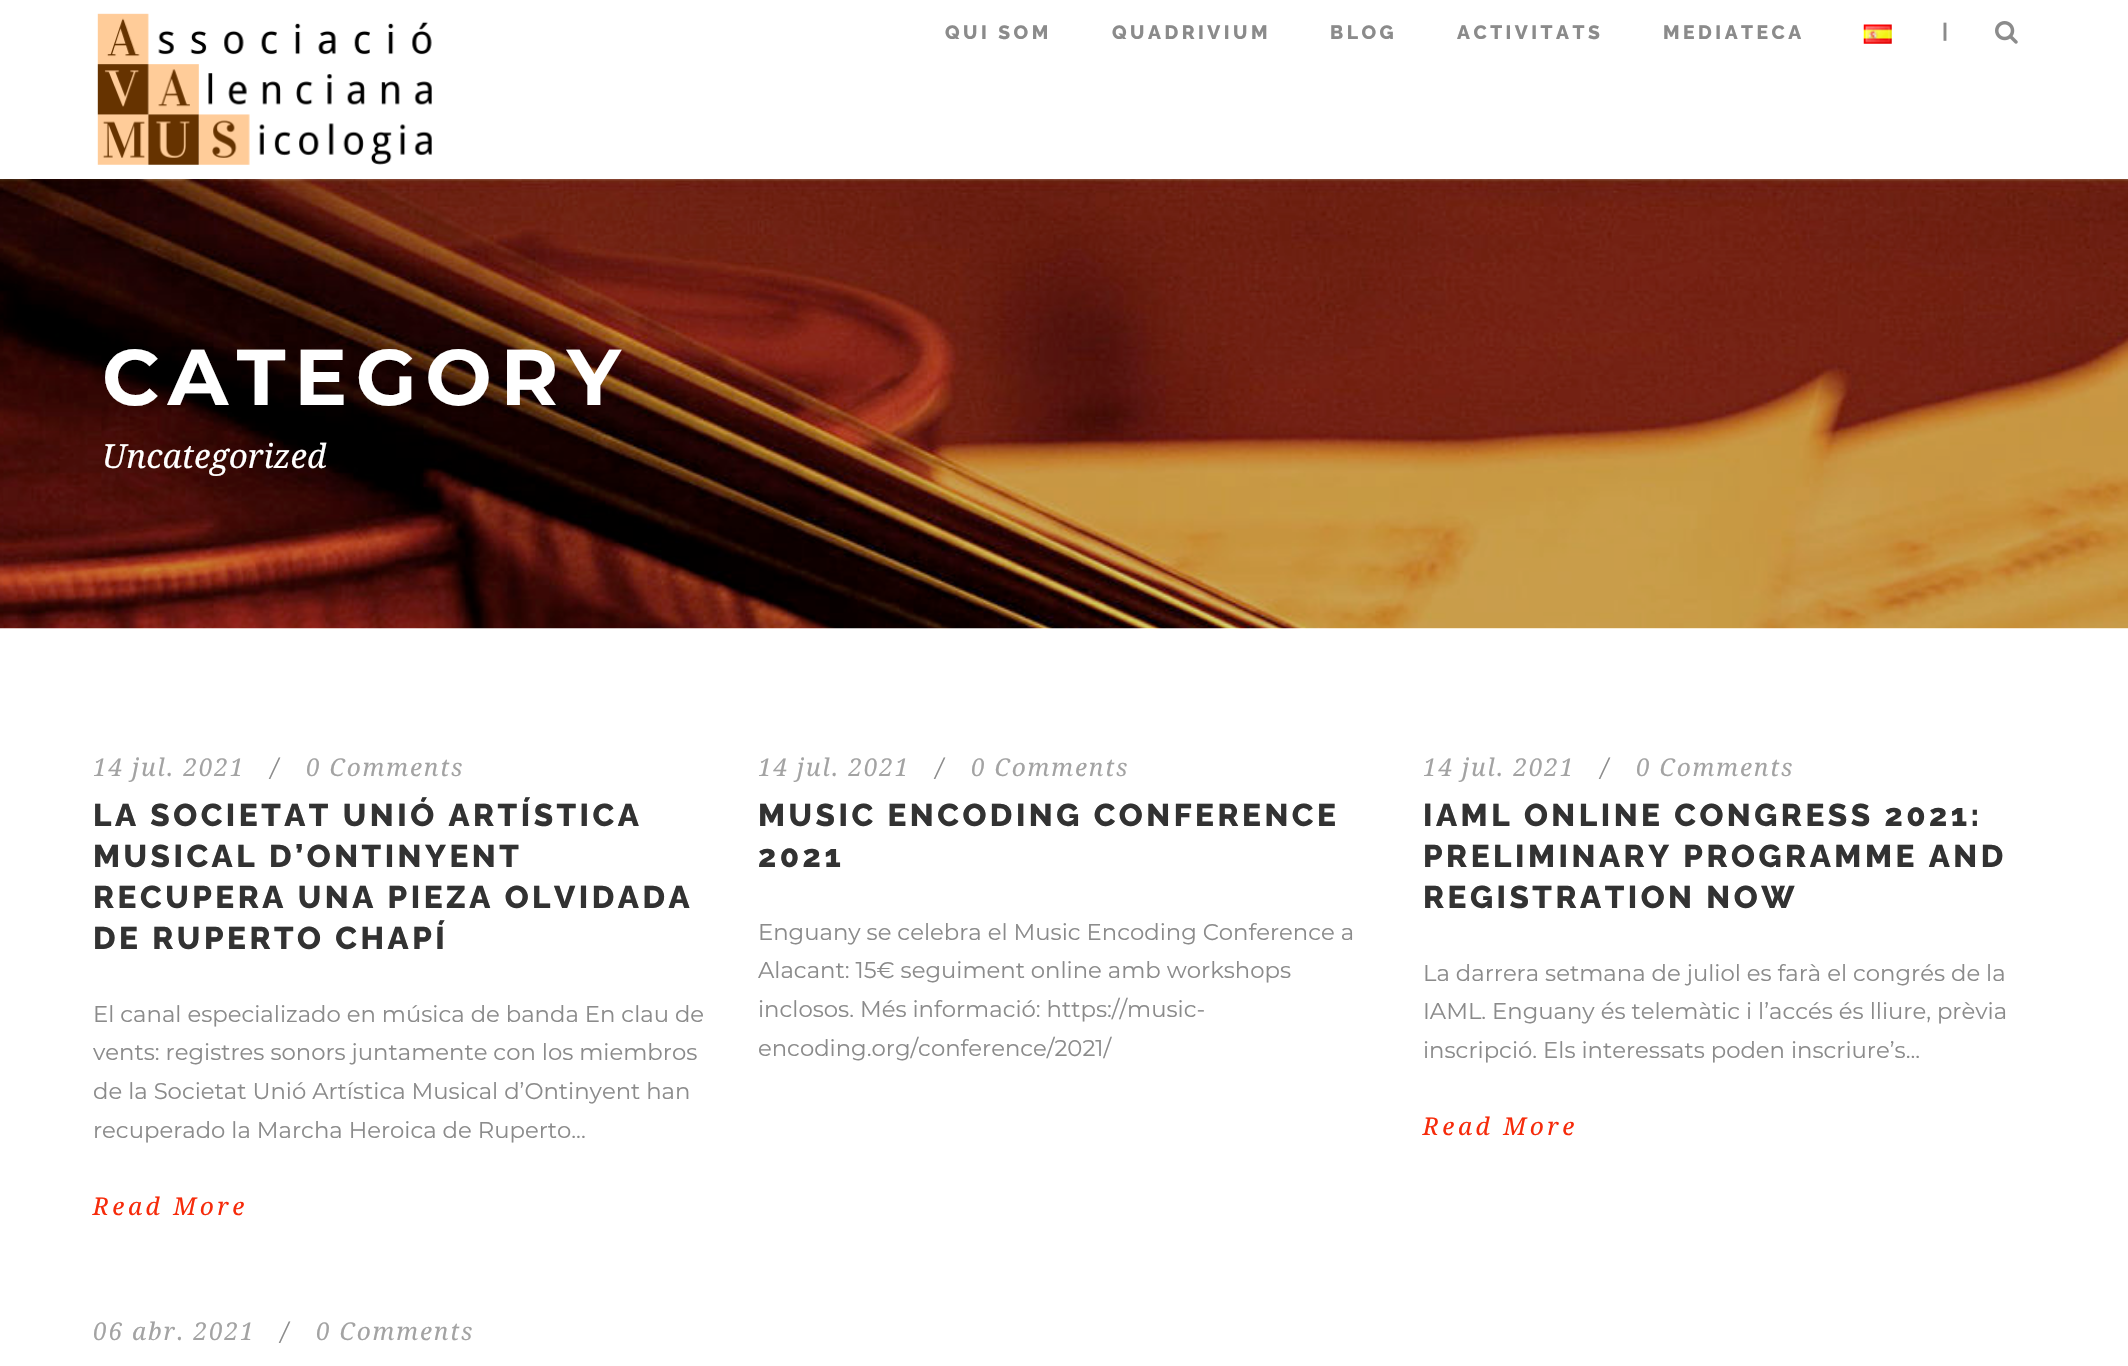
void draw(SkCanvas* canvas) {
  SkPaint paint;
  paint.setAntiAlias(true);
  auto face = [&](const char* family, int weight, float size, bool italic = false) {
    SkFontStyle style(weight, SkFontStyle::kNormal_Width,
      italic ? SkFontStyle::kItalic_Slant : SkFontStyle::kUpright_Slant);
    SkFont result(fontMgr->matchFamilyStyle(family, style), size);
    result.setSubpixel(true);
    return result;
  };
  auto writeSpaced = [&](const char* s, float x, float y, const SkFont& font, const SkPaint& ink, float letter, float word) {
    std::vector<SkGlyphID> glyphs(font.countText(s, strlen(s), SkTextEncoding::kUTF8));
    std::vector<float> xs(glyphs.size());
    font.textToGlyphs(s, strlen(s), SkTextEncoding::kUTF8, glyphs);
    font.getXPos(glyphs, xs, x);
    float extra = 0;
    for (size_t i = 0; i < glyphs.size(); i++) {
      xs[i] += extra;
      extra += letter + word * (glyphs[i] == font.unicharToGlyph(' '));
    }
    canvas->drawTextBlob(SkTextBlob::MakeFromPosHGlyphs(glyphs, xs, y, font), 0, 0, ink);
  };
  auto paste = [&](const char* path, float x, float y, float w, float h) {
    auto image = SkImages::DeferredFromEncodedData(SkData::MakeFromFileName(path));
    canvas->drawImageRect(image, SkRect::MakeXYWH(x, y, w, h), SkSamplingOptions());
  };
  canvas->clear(0xffffffff);
  paste("img/1.png", 97, 13, 335, 152);
  paste("img/2.png", 1863, 24, 29, 20);
  paste("img/3.png", 1995, 21, 23, 23);
  paste("img/4.png", 0, 179, 2128, 450);
  auto f0 = face("Raleway", 800, 19.25f);
  paint.setColor(0xff8b8b8b);
  {
    const struct { const char* s; float x, y; } items[] = {
      {"QUI SOM", 945, 39},
      {"QUADRIVIUM", 1112, 39},
      {"BLOG", 1330, 39},
      {"ACTIVITATS", 1457, 39},
      {"MEDIATECA", 1663, 39},
    };
    for (auto [s, x, y] : items) {
      writeSpaced(s, x, y, f0, paint, 3.5f, 0);
    }
  }
  auto f1 = face("Montserrat", 700, 19.25f);
  canvas->drawString("|", 1942, 37, f1, paint);
  auto f2 = face("Montserrat", 700, 78.75f);
  paint.setColor(0xffffffff);
  writeSpaced("CATEGORY", 102, 405, f2, paint, 8.75f, 0);
  auto f3 = face("Droid Serif", 400, 33.25f, true);
  canvas->drawString("Uncategorized", 102, 468, f3, paint);
  auto f4 = face("Droid Serif", 400, 24.5f, true);
  paint.setColor(0xffa3a3a3);
  writeSpaced("14 jul. 2021", 93, 776, f4, paint, 1.75f, 0);
  paint.setColor(0xff8b8b8b);
  writeSpaced("/", 271, 776, f4, paint, 1.75f, 0);
  paint.setColor(0xffa3a3a3);
  writeSpaced("0 Comments", 306, 776, f4, paint, 1.75f, 0);
  auto f5 = face("Raleway", 800, 31.5f);
  paint.setColor(0xff323232);
  {
    const struct { const char* s; float x, y; } items[] = {
      {"LA SOCIETAT UNIÓ ARTÍSTICA", 93, 826},
      {"MUSICAL D’ONTINYENT", 93, 867},
      {"RECUPERA UNA PIEZA OLVIDADA", 93, 908},
      {"DE RUPERTO CHAPÍ", 93, 949},
    };
    for (auto [s, x, y] : items) {
      writeSpaced(s, x, y, f5, paint, 3.5f, 0);
    }
  }
  auto f6 = face("Montserrat", 400, 22.75f);
  paint.setColor(0xff8b8b8b);
  {
    const struct { const char* s; float x, y; } items[] = {
      {"El canal especializado en música de banda En clau de", 93, 1022},
      {"vents: registres sonors juntamente con los miembros", 93, 1060},
      {"de la Societat Unió Artística Musical d’Ontinyent han", 93, 1099},
      {"recuperado la Marcha Heroica de Ruperto...", 93, 1138},
    };
    for (auto [s, x, y] : items) {
      canvas->drawString(s, x, y, f6, paint);
    }
  }
  paint.setColor(0xfff62b0a);
  writeSpaced("Read More", 93, 1215, f4, paint, 3.5f, 0);
  paint.setColor(0xffa3a3a3);
  writeSpaced("14 jul. 2021", 758, 776, f4, paint, 1.75f, 0);
  paint.setColor(0xff8b8b8b);
  writeSpaced("/", 936, 776, f4, paint, 1.75f, 0);
  paint.setColor(0xffa3a3a3);
  writeSpaced("0 Comments", 971, 776, f4, paint, 1.75f, 0);
  paint.setColor(0xff323232);
  writeSpaced("MUSIC ENCODING CONFERENCE", 758, 826, f5, paint, 3.5f, 0);
  writeSpaced("2021", 758, 867, f5, paint, 3.5f, 0);
  paint.setColor(0xff8b8b8b);
  {
    const struct { const char* s; float x, y; } items[] = {
      {"Enguany se celebra el Music Encoding Conference a", 758, 940},
      {"Alacant: 15€ seguiment online amb workshops", 758, 978},
      {"inclosos. Més informació: https://music-", 758, 1017},
      {"encoding.org/conference/2021/", 758, 1056},
    };
    for (auto [s, x, y] : items) {
      canvas->drawString(s, x, y, f6, paint);
    }
  }
  paint.setColor(0xffa3a3a3);
  writeSpaced("14 jul. 2021", 1423, 776, f4, paint, 1.75f, 0);
  paint.setColor(0xff8b8b8b);
  writeSpaced("/", 1601, 776, f4, paint, 1.75f, 0);
  paint.setColor(0xffa3a3a3);
  writeSpaced("0 Comments", 1636, 776, f4, paint, 1.75f, 0);
  paint.setColor(0xff323232);
  {
    const struct { const char* s; float x, y; } items[] = {
      {"IAML ONLINE CONGRESS 2021:", 1423, 826},
      {"PRELIMINARY PROGRAMME AND", 1423, 867},
      {"REGISTRATION NOW", 1423, 908},
    };
    for (auto [s, x, y] : items) {
      writeSpaced(s, x, y, f5, paint, 3.5f, 0);
    }
  }
  paint.setColor(0xff8b8b8b);
  {
    const struct { const char* s; float x, y; } items[] = {
      {"La darrera setmana de juliol es farà el congrés de la", 1423, 981},
      {"IAML. Enguany és telemàtic i l’accés és lliure, prèvia", 1423, 1019},
      {"inscripció. Els interessats poden inscriure’s...", 1423, 1058},
    };
    for (auto [s, x, y] : items) {
      canvas->drawString(s, x, y, f6, paint);
    }
  }
  paint.setColor(0xfff62b0a);
  writeSpaced("Read More", 1423, 1135, f4, paint, 3.5f, 0);
  paint.setColor(0xffa3a3a3);
  writeSpaced("06 abr. 2021", 93, 1340, f4, paint, 1.75f, 0);
  paint.setColor(0xff8b8b8b);
  writeSpaced("/", 281, 1340, f4, paint, 1.75f, 0);
  paint.setColor(0xffa3a3a3);
  writeSpaced("0 Comments", 316, 1340, f4, paint, 1.75f, 0);
}
